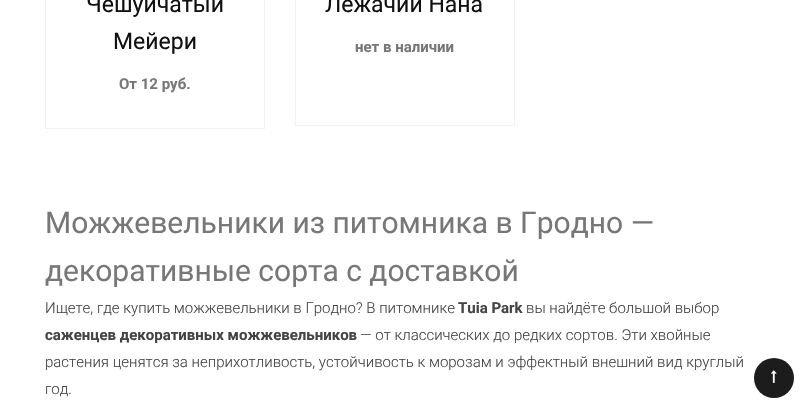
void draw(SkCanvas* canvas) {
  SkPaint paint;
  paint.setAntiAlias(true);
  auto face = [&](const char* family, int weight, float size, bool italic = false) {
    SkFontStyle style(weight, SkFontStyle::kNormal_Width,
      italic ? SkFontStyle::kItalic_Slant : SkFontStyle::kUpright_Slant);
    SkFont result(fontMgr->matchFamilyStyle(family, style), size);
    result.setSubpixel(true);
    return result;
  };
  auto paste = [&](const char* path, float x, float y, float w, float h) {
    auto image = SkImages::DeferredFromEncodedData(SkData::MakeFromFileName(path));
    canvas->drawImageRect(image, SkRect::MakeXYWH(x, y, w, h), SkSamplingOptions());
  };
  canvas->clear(0xffffffff);
  paint.setStroke(true);
  paint.setStrokeWidth(1);
  paint.setColor(0xfff2f2f2);
  canvas->drawRect(SkRect::MakeXYWH(45.5f, -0.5f, 219, 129), paint);
  canvas->drawRect(SkRect::MakeXYWH(295.5f, -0.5f, 219, 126), paint);
  paint.setStroke(false);
  paint.setColor(0xff1c1c1c);
  canvas->drawCircle(774, 378, 20, paint);
  paste("img/1.png", 771, 370, 6, 13);
  auto f0 = face("Roboto", 400, 23);
  paint.setColor(0xff111111);
  canvas->drawString("Чешуйчатый", 86, 12, f0, paint);
  canvas->drawString("Мейери", 113, 49, f0, paint);
  auto f1 = face("Roboto", 700, 15);
  paint.setColor(0xff777777);
  canvas->drawString("От 12 руб.", 119, 89, f1, paint);
  paint.setColor(0xff111111);
  canvas->drawString("Лежачий Нана", 325, 12, f0, paint);
  paint.setColor(0xff777777);
  canvas->drawString("нет в наличии", 355, 52, f1, paint);
  auto f2 = face("Roboto", 400, 30);
  canvas->drawString("Можжевельники из питомника в Гродно —", 45, 233, f2, paint);
  canvas->drawString("декоративные сорта с доставкой", 45, 281, f2, paint);
  auto f3 = face("Roboto", 300, 15);
  paint.setColor(0xff444444);
  canvas->drawString("Ищете, где купить можжевельники в Гродно? В питомнике", 45, 313, f3, paint);
  canvas->drawString("Tuia Park", 458, 313, f1, paint);
  canvas->drawString("вы найдёте большой выбор", 526, 313, f3, paint);
  canvas->drawString("саженцев декоративных можжевельников", 45, 340, f1, paint);
  {
    const struct { const char* s; float x, y; } items[] = {
      {"— от классических до редких сортов. Эти хвойные", 360, 340},
      {"растения ценятся за неприхотливость, устойчивость к морозам и эффектный внешний вид круглый", 45, 367},
      {"год.", 45, 394},
    };
    for (auto [s, x, y] : items) {
      canvas->drawString(s, x, y, f3, paint);
    }
  }
}
